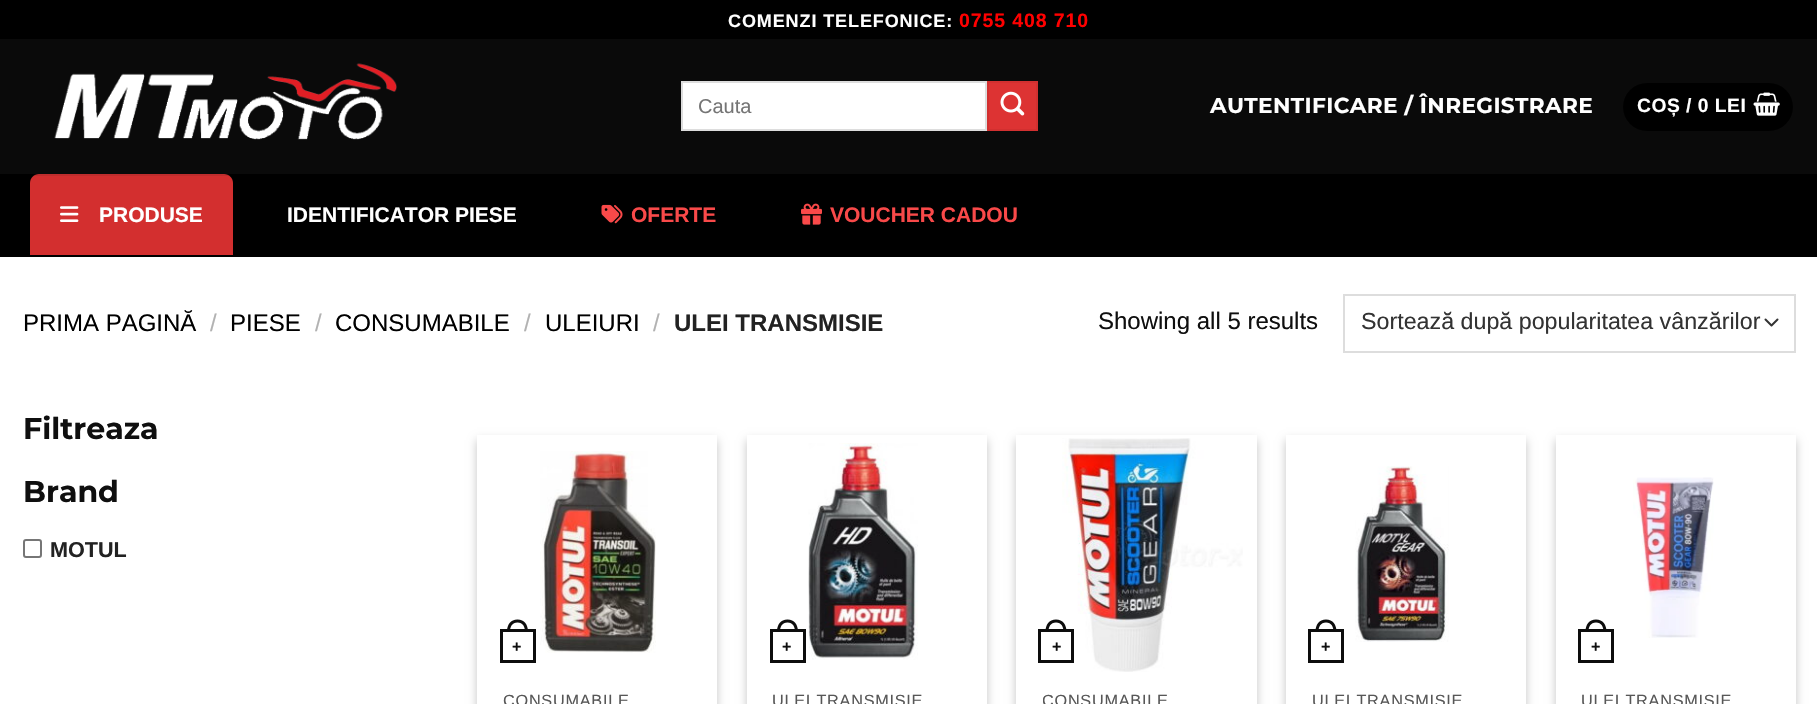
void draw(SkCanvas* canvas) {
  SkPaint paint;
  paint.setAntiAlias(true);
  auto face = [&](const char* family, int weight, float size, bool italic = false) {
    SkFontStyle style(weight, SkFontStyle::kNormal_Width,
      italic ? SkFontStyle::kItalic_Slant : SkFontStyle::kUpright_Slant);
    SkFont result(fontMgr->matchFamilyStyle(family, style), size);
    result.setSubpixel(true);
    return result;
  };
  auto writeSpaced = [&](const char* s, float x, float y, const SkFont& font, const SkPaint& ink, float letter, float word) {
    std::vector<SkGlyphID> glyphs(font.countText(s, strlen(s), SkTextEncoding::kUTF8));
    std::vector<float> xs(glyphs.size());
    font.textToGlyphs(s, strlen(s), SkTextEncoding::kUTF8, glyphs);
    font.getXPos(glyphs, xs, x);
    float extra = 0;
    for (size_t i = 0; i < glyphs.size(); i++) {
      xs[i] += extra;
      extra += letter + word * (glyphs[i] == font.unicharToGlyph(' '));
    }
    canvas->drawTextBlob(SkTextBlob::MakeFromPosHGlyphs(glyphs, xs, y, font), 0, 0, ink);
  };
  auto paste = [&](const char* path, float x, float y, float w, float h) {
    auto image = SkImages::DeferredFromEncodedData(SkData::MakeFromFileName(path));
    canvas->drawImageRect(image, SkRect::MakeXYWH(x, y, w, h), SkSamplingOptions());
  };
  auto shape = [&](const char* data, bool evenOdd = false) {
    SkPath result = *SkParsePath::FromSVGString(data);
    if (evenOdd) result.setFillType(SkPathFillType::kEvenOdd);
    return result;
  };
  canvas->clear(0xffffffff);
  paint.setColor(0xff000000);
  canvas->drawRect(SkRect::MakeXYWH(0, 0, 1817, 39), paint);
  paint.setColor(0xff0a0a0a);
  canvas->drawRect(SkRect::MakeXYWH(0, 39, 1817, 135), paint);
  paste("img/1.png", 54, 63, 343, 77);
  paint.setColor(0xffffffff);
  canvas->drawRect(SkRect::MakeXYWH(682, 82, 304, 48), paint);
  paint.setStroke(true);
  paint.setStrokeWidth(2);
  paint.setColor(0xffdddddd);
  canvas->drawRect(SkRect::MakeXYWH(682, 82, 304, 48), paint);
  paint.setStroke(false);
  paint.setColor(0xffdd3333);
  canvas->drawRect(SkRect::MakeXYWH(988, 82, 49, 48), paint);
  paint.setStroke(true);
  paint.setColor(0xffd23030);
  canvas->drawRect(SkRect::MakeXYWH(988, 82, 49, 48), paint);
  paste("img/2.png", 1000, 91, 25, 25);
  paint.setStroke(false);
  paint.setColor(0xff000000);
  canvas->drawRoundRect(SkRect::MakeXYWH(1623, 83, 170, 48), 24, 24, paint);
  paste("img/3.png", 1753, 92, 27, 24);
  canvas->drawRect(SkRect::MakeXYWH(0, 174, 1817, 83), paint);
  paint.setColor(0xffd32f2f);
  canvas->drawPath(shape("M39 174H224C229 174 233 178 233 183V255H30V183C30 178 34 174 39 174Z"), paint);
  paint.setColor(0x1a0f0f0f);
  canvas->drawRect(SkRect::MakeXYWH(34, 174, 195, 2), paint);
  paste("img/4.png", 60, 206, 19, 16);
  paste("img/5.png", 601, 204, 22, 20);
  paste("img/6.png", 801, 203, 21, 22);
  paint.setStroke(true);
  paint.setStrokeCap(SkPaint::kRound_Cap);
  paint.setStrokeJoin(SkPaint::kRound_Join);
  paint.setColor(0xff333333);
  canvas->drawPath(shape("M1765.5 319.5L1771.5 325.5L1777.5 319.5"), paint);
  paint.setStrokeCap(SkPaint::kButt_Cap);
  paint.setStrokeJoin(SkPaint::kMiter_Join);
  paint.setColor(0xffdddddd);
  canvas->drawRect(SkRect::MakeXYWH(1344, 295, 451, 57), paint);
  paint.setColor(0xff767676);
  canvas->drawRoundRect(SkRect::MakeXYWH(24, 540, 17, 17), 2, 2, paint);
  canvas->save();
  canvas->clipPath(shape("M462 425H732V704H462ZM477 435H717V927H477Z", true), true);
  paint.setStroke(false);
  paint.setColor(0x3b000000);
  paint.setMaskFilter(SkMaskFilter::MakeBlur(kNormal_SkBlurStyle, 4.5f));
  canvas->drawRect(SkRect::MakeXYWH(477, 440, 240, 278), paint);
  paint.setMaskFilter(nullptr);
  canvas->restore();
  paint.setStroke(true);
  paint.setStrokeWidth(3);
  paint.setColor(0xff0d0d0d);
  canvas->drawRect(SkRect::MakeXYWH(501.5f, 630.5f, 33, 31), paint);
  paint.setStroke(false);
  canvas->drawPath(shape("M517.5 619.5C524.5 619.5 528 625 528 631.5H507C507 625 510.5 619.5 517.5 619.5ZM517.5 622.5C523 622.5 525 627 525 631.5H510C510 627 512 622.5 517.5 622.5Z", true), paint);
  paste("img/7.png", 540, 451, 116, 202);
  canvas->save();
  canvas->clipPath(shape("M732 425H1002V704H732ZM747 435H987V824H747Z", true), true);
  paint.setColor(0x3b000000);
  paint.setMaskFilter(SkMaskFilter::MakeBlur(kNormal_SkBlurStyle, 4.5f));
  canvas->drawRect(SkRect::MakeXYWH(747, 440, 240, 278), paint);
  paint.setMaskFilter(nullptr);
  canvas->restore();
  paint.setStroke(true);
  paint.setColor(0xff0d0d0d);
  canvas->drawRect(SkRect::MakeXYWH(771.5f, 630.5f, 33, 31), paint);
  paint.setStroke(false);
  canvas->drawPath(shape("M787.5 619.5C794.5 619.5 798 625 798 631.5H777C777 625 780.5 619.5 787.5 619.5ZM787.5 622.5C793 622.5 795 627 795 631.5H780C780 627 782 622.5 787.5 622.5Z", true), paint);
  paste("img/8.png", 808, 443, 110, 217);
  canvas->save();
  canvas->clipPath(shape("M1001 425H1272V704H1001ZM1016 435H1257V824H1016Z", true), true);
  paint.setColor(0x3b000000);
  paint.setMaskFilter(SkMaskFilter::MakeBlur(kNormal_SkBlurStyle, 4.5f));
  canvas->drawRect(SkRect::MakeXYWH(1016, 440, 241, 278), paint);
  paint.setMaskFilter(nullptr);
  canvas->restore();
  paste("img/9.png", 1062, 438, 181, 234);
  paint.setStroke(true);
  paint.setColor(0xff0d0d0d);
  canvas->drawRect(SkRect::MakeXYWH(1039.5f, 630.5f, 33, 31), paint);
  paint.setStroke(false);
  canvas->drawPath(shape("M1056 619.5C1063 619.5 1066.5 625 1066.5 631.5H1045.5C1045.5 625 1049 619.5 1056 619.5ZM1056 622.5C1061.5 622.5 1063.5 627 1063.5 631.5H1048.5C1048.5 627 1050.5 622.5 1056 622.5Z", true), paint);
  paint.setColor(0x3b000000);
  paint.setMaskFilter(SkMaskFilter::MakeBlur(kNormal_SkBlurStyle, 4.5f));
  canvas->drawRect(SkRect::MakeXYWH(1286, 440, 240, 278), paint);
  paint.setMaskFilter(nullptr);
  paint.setColor(0xffffffff);
  canvas->drawRect(SkRect::MakeXYWH(1286, 435, 240, 269), paint);
  paste("img/10.png", 1355, 466, 94, 176);
  paint.setStroke(true);
  paint.setColor(0xff0d0d0d);
  canvas->drawRect(SkRect::MakeXYWH(1309.5f, 630.5f, 33, 31), paint);
  paint.setStroke(false);
  canvas->drawPath(shape("M1326 619.5C1333 619.5 1336.5 625 1336.5 631.5H1315.5C1315.5 625 1319 619.5 1326 619.5ZM1326 622.5C1331.5 622.5 1333.5 627 1333.5 631.5H1318.5C1318.5 627 1320.5 622.5 1326 622.5Z", true), paint);
  paint.setColor(0x3b000000);
  paint.setMaskFilter(SkMaskFilter::MakeBlur(kNormal_SkBlurStyle, 4.5f));
  canvas->drawRect(SkRect::MakeXYWH(1556, 440, 240, 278), paint);
  paint.setMaskFilter(nullptr);
  paint.setColor(0xffffffff);
  canvas->drawRect(SkRect::MakeXYWH(1556, 435, 240, 269), paint);
  paste("img/11.png", 1633, 477, 81, 161);
  paint.setStroke(true);
  paint.setColor(0xff0d0d0d);
  canvas->drawRect(SkRect::MakeXYWH(1579.5f, 630.5f, 33, 31), paint);
  paint.setStroke(false);
  canvas->drawPath(shape("M1596 619.5C1603 619.5 1606.5 625 1606.5 631.5H1585.5C1585.5 625 1589 619.5 1596 619.5ZM1596 622.5C1601.5 622.5 1603.5 627 1603.5 631.5H1588.5C1588.5 627 1590.5 622.5 1596 622.5Z", true), paint);
  auto f0 = face("Liberation Sans", 700, 18);
  paint.setColor(0xffffffff);
  writeSpaced("COMENZI TELEFONICE:", 728, 27, f0, paint, 0.9f, 0);
  auto f1 = face("Liberation Sans", 700, 19.5f);
  paint.setColor(0xffff0000);
  writeSpaced("0755 408 710", 959, 27, f1, paint, 0.9f, 0);
  auto f2 = face("Liberation Sans", 400, 20);
  paint.setColor(0xff757575);
  canvas->drawString("Cauta", 698, 113, f2, paint);
  auto f3 = face("Montserrat", 700, 21.6f);
  paint.setColor(0xffffffff);
  writeSpaced("AUTENTIFICARE / ÎNREGISTRARE", 1210, 113, f3, paint, 0.4f, 0);
  auto f4 = face("Liberation Sans", 700, 19.25f);
  writeSpaced("COȘ / 0 LEI", 1637, 112, f4, paint, 0.5f, 0);
  auto f5 = face("Liberation Sans", 700, 21);
  canvas->drawString("PRODUSE", 99, 222, f5, paint);
  canvas->drawString("IDENTIFICATOR PIESE", 287, 222, f5, paint);
  paint.setColor(0xfff94949);
  canvas->drawString("OFERTE", 631, 222, f5, paint);
  canvas->drawString("VOUCHER CADOU", 830, 222, f5, paint);
  auto f6 = face("Liberation Sans", 400, 24);
  paint.setColor(0xff000000);
  canvas->drawString("PRIMA PAGINĂ", 23, 331, f6, paint);
  paint.setColor(0xffb2b2b2);
  canvas->drawString("/", 210, 331, f6, paint);
  paint.setColor(0xff000000);
  canvas->drawString("PIESE", 230, 331, f6, paint);
  paint.setColor(0xffb2b2b2);
  canvas->drawString("/", 315, 331, f6, paint);
  paint.setColor(0xff000000);
  canvas->drawString("CONSUMABILE", 335, 331, f6, paint);
  paint.setColor(0xffb2b2b2);
  canvas->drawString("/", 524, 331, f6, paint);
  paint.setColor(0xff000000);
  canvas->drawString("ULEIURI", 545, 331, f6, paint);
  paint.setColor(0xffb2b2b2);
  canvas->drawString("/", 653, 331, f6, paint);
  auto f7 = face("Liberation Sans", 700, 24);
  paint.setColor(0xff222222);
  canvas->drawString("ULEI TRANSMISIE", 674, 331, f7, paint);
  paint.setColor(0xff0f0f0f);
  canvas->drawString("Showing all 5 results", 1098, 329, f6, paint);
  auto f8 = face("Liberation Sans", 400, 23.25f);
  paint.setColor(0xff333333);
  canvas->drawString("Sortează după popularitatea vânzărilor", 1361, 329, f8, paint);
  auto f9 = face("Montserrat", 700, 30);
  paint.setColor(0xff0f0f0f);
  canvas->drawString("Filtreaza", 23, 439, f9, paint);
  canvas->drawString("Brand", 23, 502, f9, paint);
  auto f10 = face("Liberation Sans", 700, 21.6f);
  paint.setColor(0xff222222);
  canvas->drawString("MOTUL", 50, 557, f10, paint);
  auto f11 = face("Liberation Sans", 700, 16);
  paint.setColor(0xff0f0f0f);
  canvas->drawString("+", 512, 652, f11, paint);
  auto f12 = face("Liberation Sans", 400, 16.25f);
  paint.setColor(0xff575757);
  writeSpaced("CONSUMABILE", 503, 706, f12, paint, 0.75f, 0);
  paint.setColor(0xff0f0f0f);
  canvas->drawString("+", 782, 652, f11, paint);
  paint.setColor(0xff575757);
  writeSpaced("ULEI TRANSMISIE", 772, 706, f12, paint, 0.75f, 0);
  paint.setColor(0xff0f0f0f);
  canvas->drawString("+", 1052, 652, f11, paint);
  canvas->save();
  canvas->clipRect(SkRect::MakeXYWH(1043, 692, 187, 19));
  paint.setColor(0xff575757);
  writeSpaced("CONSUMABILE", 1042, 706, f12, paint, 0.75f, 0);
  canvas->restore();
  paint.setColor(0xff0f0f0f);
  canvas->drawString("+", 1321, 652, f11, paint);
  paint.setColor(0xff575757);
  writeSpaced("ULEI TRANSMISIE", 1312, 706, f12, paint, 0.75f, 0);
  paint.setColor(0xff0f0f0f);
  canvas->drawString("+", 1591, 652, f11, paint);
  paint.setColor(0xff575757);
  writeSpaced("ULEI TRANSMISIE", 1581, 706, f12, paint, 0.75f, 0);
}
